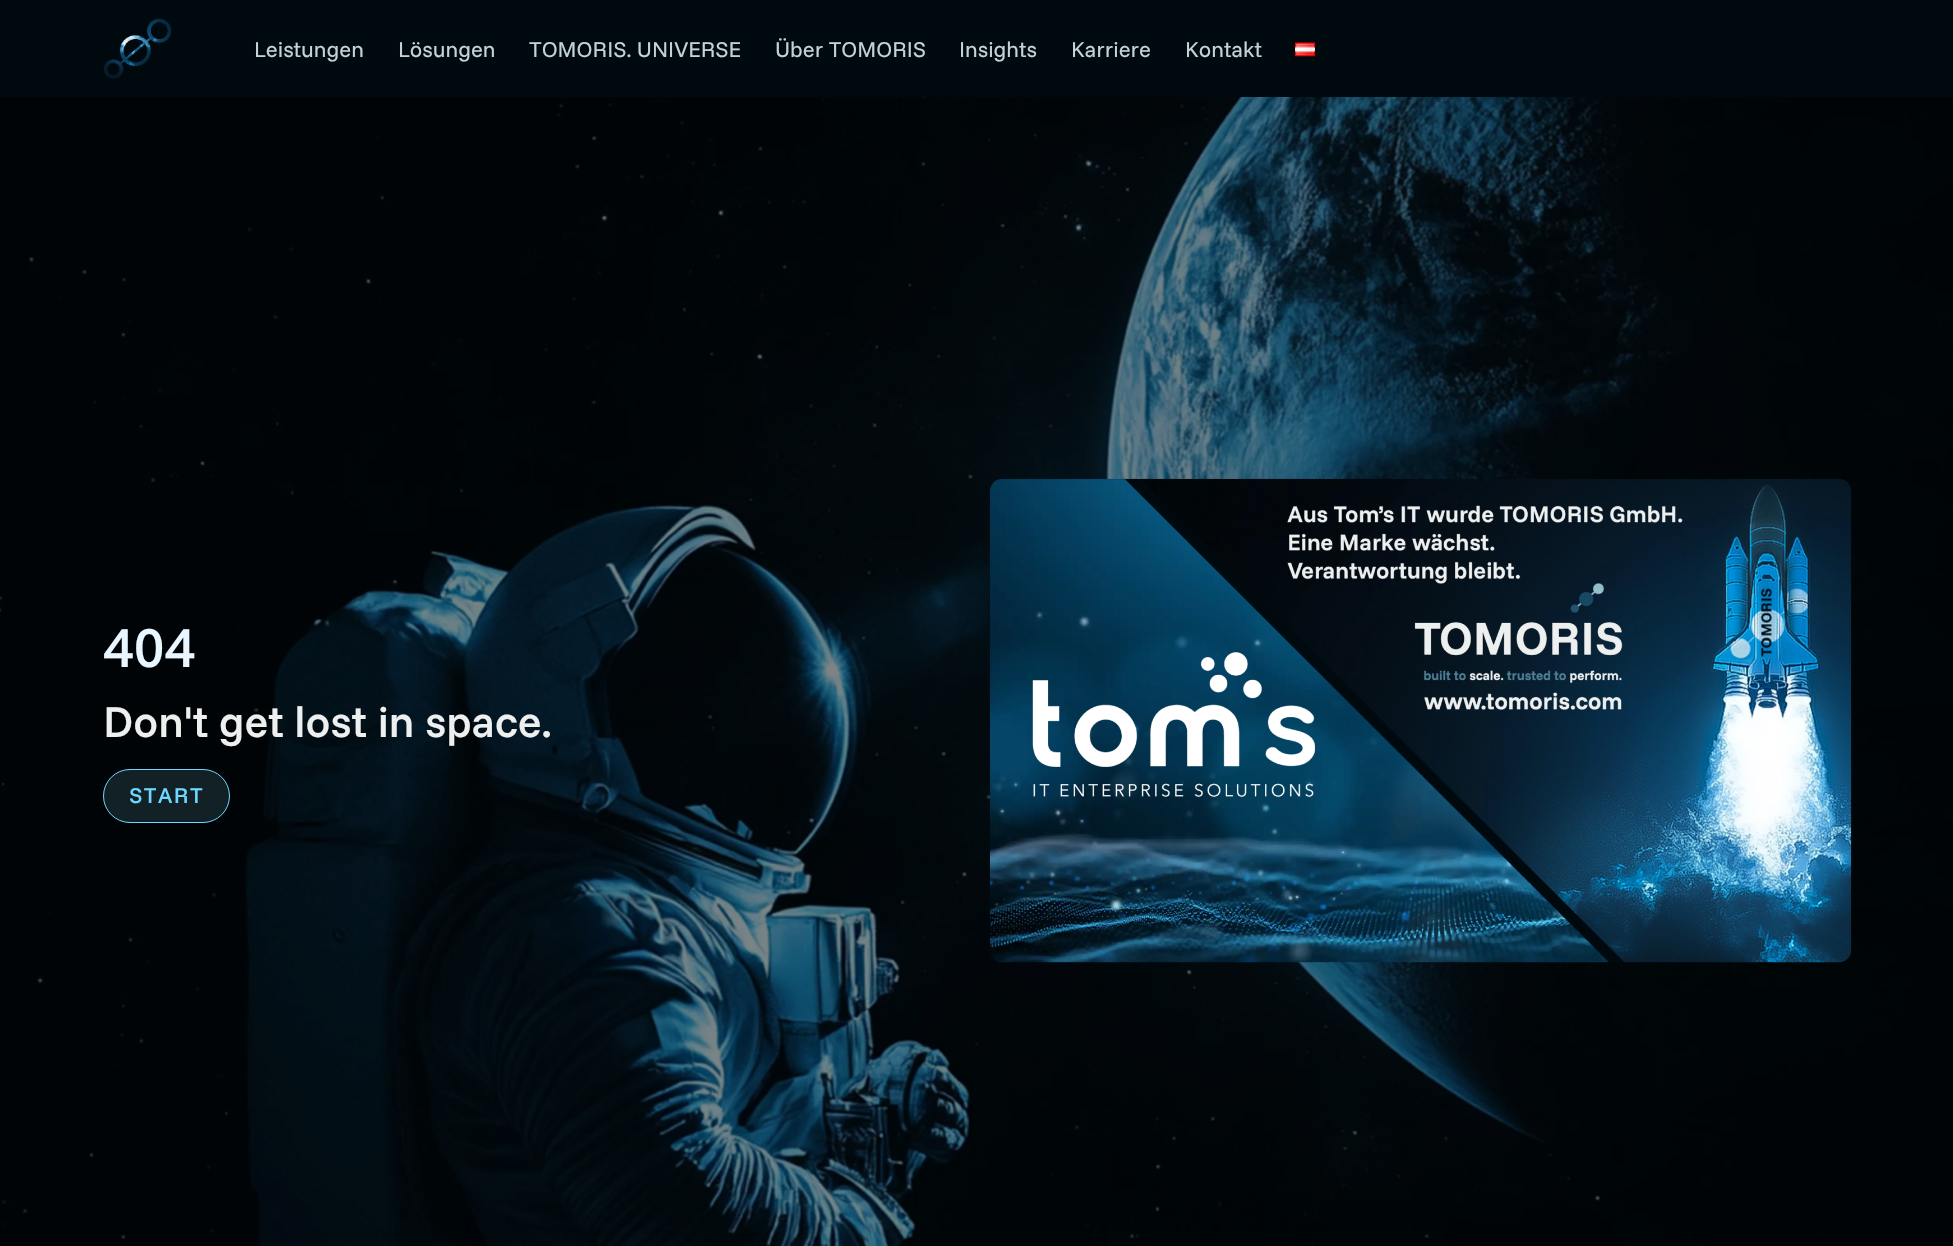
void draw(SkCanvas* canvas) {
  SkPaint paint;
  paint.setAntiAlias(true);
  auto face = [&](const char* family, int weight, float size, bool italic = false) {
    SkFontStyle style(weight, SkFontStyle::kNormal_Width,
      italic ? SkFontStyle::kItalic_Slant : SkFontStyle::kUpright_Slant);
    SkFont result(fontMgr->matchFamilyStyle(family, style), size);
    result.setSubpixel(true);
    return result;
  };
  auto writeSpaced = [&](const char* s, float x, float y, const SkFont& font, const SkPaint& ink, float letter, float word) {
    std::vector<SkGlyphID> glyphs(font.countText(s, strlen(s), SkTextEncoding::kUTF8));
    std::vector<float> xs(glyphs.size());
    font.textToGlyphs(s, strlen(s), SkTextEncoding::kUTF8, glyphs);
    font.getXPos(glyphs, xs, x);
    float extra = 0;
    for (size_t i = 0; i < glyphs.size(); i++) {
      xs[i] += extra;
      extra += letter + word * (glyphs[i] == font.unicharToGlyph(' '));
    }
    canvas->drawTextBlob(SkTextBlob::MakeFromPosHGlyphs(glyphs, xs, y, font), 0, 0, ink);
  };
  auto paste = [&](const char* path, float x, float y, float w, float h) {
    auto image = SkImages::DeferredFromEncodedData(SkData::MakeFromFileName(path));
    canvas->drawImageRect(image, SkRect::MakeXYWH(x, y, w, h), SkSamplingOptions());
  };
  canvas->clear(0xff00090d);
  paste("img/1.png", 103, 18, 69, 61);
  paste("img/2.png", 1295, 42, 20, 15);
  paste("img/3.png", 0, 97, 1953, 1149);
  paint.setColor(0xff112126);
  canvas->drawRoundRect(SkRect::MakeXYWH(103.5f, 769.5f, 126, 53), 26.5f, 26.5f, paint);
  paint.setStroke(true);
  paint.setStrokeWidth(1);
  paint.setColor(0xff6fd7ff);
  canvas->drawRoundRect(SkRect::MakeXYWH(103.5f, 769.5f, 126, 53), 26.5f, 26.5f, paint);
  paste("img/4.png", 990, 478, 862, 485);
  auto f0 = face("Funnel Sans", 400, 22);
  paint.setStroke(false);
  paint.setColor(0xffc3d1da);
  {
    const struct { const char* s; float x, y; } items[] = {
      {"Leistungen", 254, 57},
      {"Lösungen", 398, 57},
      {"TOMORIS. UNIVERSE", 529, 57},
      {"Über TOMORIS", 775, 57},
      {"Insights", 959, 57},
      {"Karriere", 1071, 57},
      {"Kontakt", 1185, 57},
    };
    for (auto [s, x, y] : items) {
      canvas->drawString(s, x, y, f0, paint);
    }
  }
  auto f1 = face("Funnel Sans", 500, 56);
  paint.setColor(0xffeaf6ff);
  canvas->drawString("404", 103, 667, f1, paint);
  auto f2 = face("Funnel Sans", 500, 44);
  paint.setColor(0xffeef0f0);
  canvas->drawString("Don't get lost in space.", 103, 737, f2, paint);
  auto f3 = face("Funnel Sans", 500, 22);
  paint.setColor(0xff6fd7ff);
  writeSpaced("START", 129, 803, f3, paint, 1.5f, 0);
}
